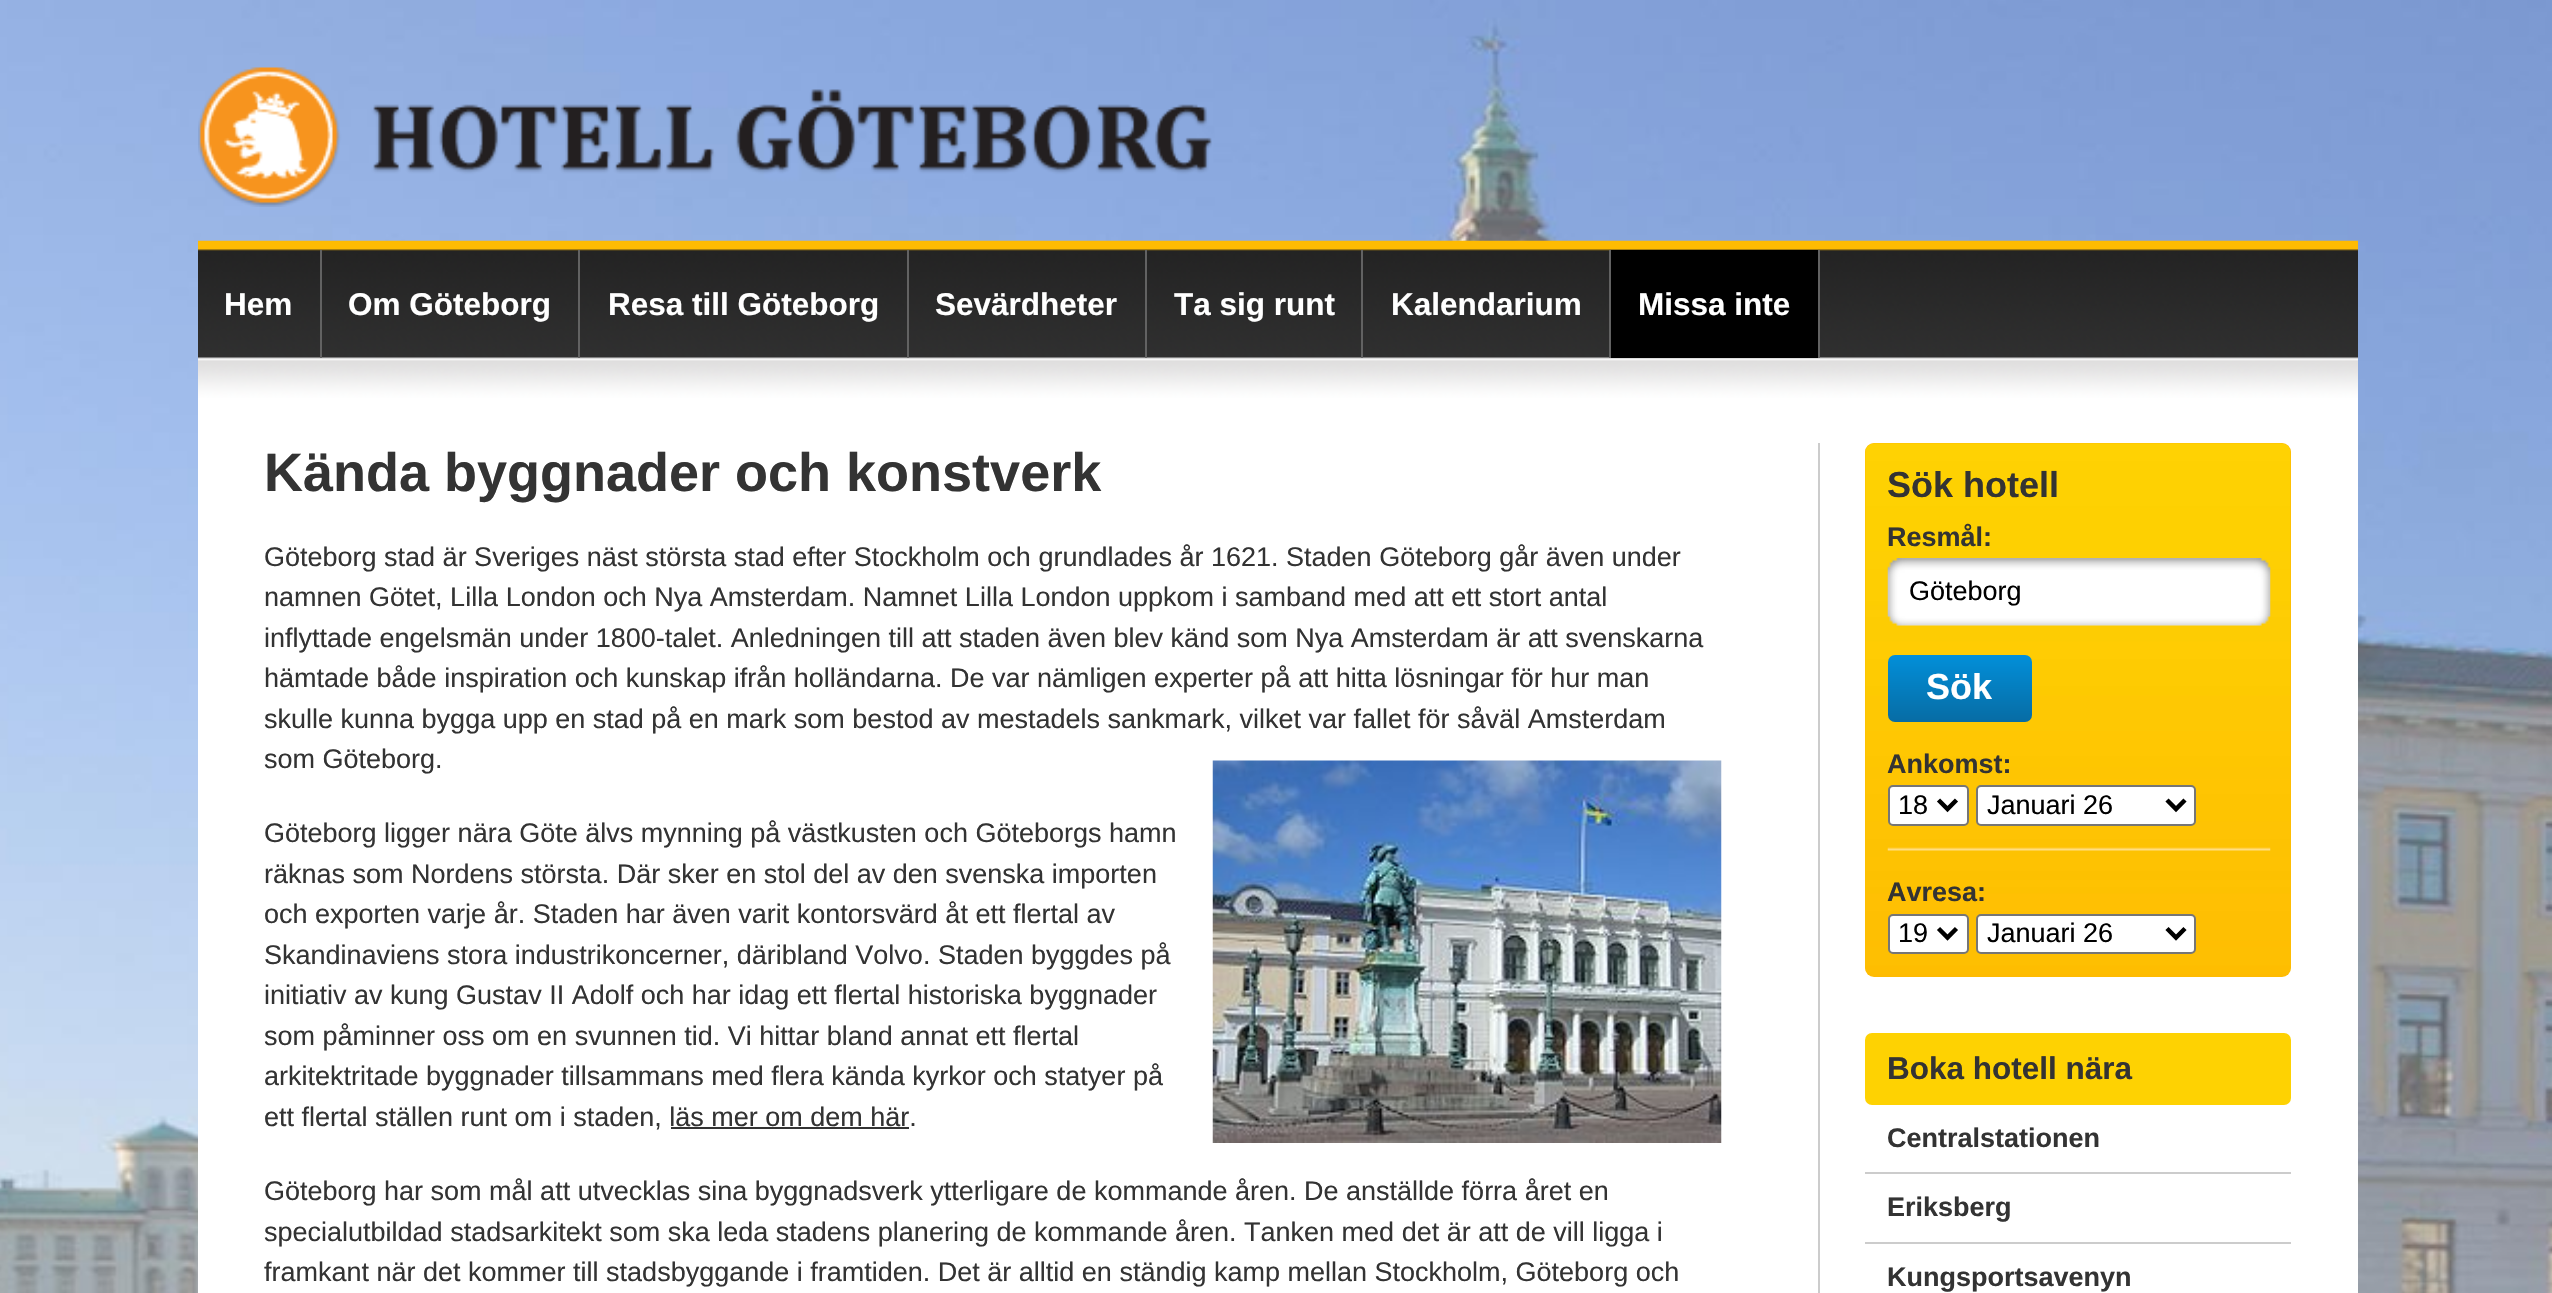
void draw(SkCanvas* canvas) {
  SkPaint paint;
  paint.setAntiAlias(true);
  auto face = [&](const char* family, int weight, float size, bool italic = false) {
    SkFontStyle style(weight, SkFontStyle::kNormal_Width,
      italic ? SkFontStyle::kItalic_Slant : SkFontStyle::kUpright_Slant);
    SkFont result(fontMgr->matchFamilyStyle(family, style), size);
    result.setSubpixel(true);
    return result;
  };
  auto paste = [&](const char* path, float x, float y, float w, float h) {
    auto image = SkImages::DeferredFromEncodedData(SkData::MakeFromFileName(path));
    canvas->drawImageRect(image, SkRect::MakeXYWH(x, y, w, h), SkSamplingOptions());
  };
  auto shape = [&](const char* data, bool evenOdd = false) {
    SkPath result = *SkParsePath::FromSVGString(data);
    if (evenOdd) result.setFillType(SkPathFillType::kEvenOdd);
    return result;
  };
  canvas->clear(0xffffffff);
  paste("img/1.png", 0, 0, 2552, 1293);
  paste("img/2.png", 198, 67, 1014, 140);
  paste("img/3.png", 198, 240, 2160, 158);
  {
    const struct { float x, y, w, h; SkColor color; } items[] = {
      {320, 250, 2, 108, 0xff626262},
      {578, 250, 2, 108, 0xff626262},
      {907, 250, 2, 108, 0xff626262},
      {1145, 250, 2, 108, 0xff626262},
      {1361, 250, 2, 108, 0xff626262},
      {1609, 250, 2, 108, 0xff626262},
      {1611, 250, 207, 108, 0xff000000},
      {1818, 250, 2, 108, 0xff626262},
      {198, 398, 2160, 895, 0xffffffff},
    };
    for (auto [x, y, w, h, color] : items) {
      paint.setColor(color);
      canvas->drawRect(SkRect::MakeXYWH(x, y, w, h), paint);
    }
  }
  paste("img/4.png", 1212, 760, 510, 383);
  paint.setColor(0xff333333);
  canvas->drawRect(SkRect::MakeXYWH(671, 1127, 238, 2), paint);
  paint.setColor(0xffcccccc);
  canvas->drawRect(SkRect::MakeXYWH(1818, 443, 2, 850), paint);
  paint.setColor(0xfffebb02);
  canvas->drawRoundRect(SkRect::MakeXYWH(1865, 443, 426, 534), 9, 9, paint);
  paste("img/5.png", 1865, 443, 426, 531);
  paste("img/6.png", 1887, 558, 384, 68);
  {
    const SkColor colors[] = {0xff028fd9, 0xff076ca4};
    const float stops[] = {0, 1};
    const SkPoint ends[] = {{1960, 655}, {1960, 722}};
    paint.setShader(SkGradientShader::MakeLinear(ends, colors, stops, 2, SkTileMode::kClamp));
    paint.setAlpha(255);
  }
  canvas->drawRoundRect(SkRect::MakeXYWH(1888, 655, 144, 67), 7, 7, paint);
  paste("img/7.png", 1887, 847, 384, 4);
  paint.setShader(nullptr);
  paint.setColor(0xffffffff);
  canvas->drawRoundRect(SkRect::MakeXYWH(1889, 786, 79, 39), 4, 4, paint);
  paint.setStroke(true);
  paint.setStrokeWidth(2);
  paint.setColor(0xff767676);
  canvas->drawRoundRect(SkRect::MakeXYWH(1889, 786, 79, 39), 4, 4, paint);
  paint.setStrokeWidth(4.5f);
  paint.setColor(0xff000000);
  canvas->drawPath(shape("M1938.5 800L1947.5 809L1956.5 800"), paint);
  paint.setStroke(false);
  paint.setColor(0xffffffff);
  canvas->drawRoundRect(SkRect::MakeXYWH(1977, 786, 218, 39), 4, 4, paint);
  paint.setStroke(true);
  paint.setStrokeWidth(2);
  paint.setColor(0xff767676);
  canvas->drawRoundRect(SkRect::MakeXYWH(1977, 786, 218, 39), 4, 4, paint);
  paint.setStrokeWidth(4.5f);
  paint.setColor(0xff000000);
  canvas->drawPath(shape("M2167 800L2176 809L2185 800"), paint);
  paint.setStroke(false);
  paint.setColor(0xffffffff);
  canvas->drawRoundRect(SkRect::MakeXYWH(1889, 915, 79, 38), 4, 4, paint);
  paint.setStroke(true);
  paint.setStrokeWidth(2);
  paint.setColor(0xff767676);
  canvas->drawRoundRect(SkRect::MakeXYWH(1889, 915, 79, 38), 4, 4, paint);
  paint.setStrokeWidth(4.5f);
  paint.setColor(0xff000000);
  canvas->drawPath(shape("M1938.5 928.5L1947.5 937.5L1956.5 928.5"), paint);
  paint.setStroke(false);
  paint.setColor(0xffffffff);
  canvas->drawRoundRect(SkRect::MakeXYWH(1977, 915, 218, 38), 4, 4, paint);
  paint.setStroke(true);
  paint.setStrokeWidth(2);
  paint.setColor(0xff767676);
  canvas->drawRoundRect(SkRect::MakeXYWH(1977, 915, 218, 38), 4, 4, paint);
  paint.setStrokeWidth(4.5f);
  paint.setColor(0xff000000);
  canvas->drawPath(shape("M2167 928.5L2176 937.5L2185 928.5"), paint);
  paint.setStroke(false);
  paint.setColor(0xfffed202);
  canvas->drawRoundRect(SkRect::MakeXYWH(1865, 1033, 426, 72), 7, 7, paint);
  paint.setColor(0xffcccccc);
  canvas->drawRect(SkRect::MakeXYWH(1865, 1172, 426, 2), paint);
  canvas->drawRect(SkRect::MakeXYWH(1865, 1242, 426, 2), paint);
  auto f0 = face("Liberation Sans", 700, 31.5f);
  paint.setColor(0xffffffff);
  {
    const struct { const char* s; float x, y; } items[] = {
      {"Hem", 224, 315},
      {"Om Göteborg", 348, 315},
      {"Resa till Göteborg", 608, 315},
      {"Sevärdheter", 935, 315},
      {"Ta sig runt", 1174, 315},
      {"Kalendarium", 1391, 315},
      {"Missa inte", 1638, 315},
    };
    for (auto [s, x, y] : items) {
      canvas->drawString(s, x, y, f0, paint);
    }
  }
  auto f1 = face("Liberation Sans", 700, 54);
  paint.setColor(0xff333333);
  canvas->drawString("Kända byggnader och konstverk", 264, 491, f1, paint);
  auto f2 = face("Liberation Sans", 400, 27);
  {
    const struct { const char* s; float x, y; } items[] = {
      {"Göteborg stad är Sveriges näst största stad efter Stockholm och grundlades år 1621. Staden Göteborg går även under", 264, 566},
      {"namnen Götet, Lilla London och Nya Amsterdam. Namnet Lilla London uppkom i samband med att ett stort antal", 264, 606},
      {"inflyttade engelsmän under 1800-talet. Anledningen till att staden även blev känd som Nya Amsterdam är att svenskarna", 264, 647},
      {"hämtade både inspiration och kunskap ifrån holländarna. De var nämligen experter på att hitta lösningar för hur man", 264, 687},
      {"skulle kunna bygga upp en stad på en mark som bestod av mestadels sankmark, vilket var fallet för såväl Amsterdam", 264, 728},
      {"som Göteborg.", 264, 768},
      {"Göteborg ligger nära Göte älvs mynning på västkusten och Göteborgs hamn", 264, 842},
      {"räknas som Nordens största. Där sker en stol del av den svenska importen", 264, 883},
      {"och exporten varje år. Staden har även varit kontorsvärd åt ett flertal av", 264, 923},
      {"Skandinaviens stora industrikoncerner, däribland Volvo. Staden byggdes på", 264, 964},
      {"initiativ av kung Gustav II Adolf och har idag ett flertal historiska byggnader", 264, 1004},
      {"som påminner oss om en svunnen tid. Vi hittar bland annat ett flertal", 264, 1045},
      {"arkitektritade byggnader tillsammans med flera kända kyrkor och statyer på", 264, 1085},
      {"ett flertal ställen runt om i staden, läs mer om dem här.", 264, 1126},
      {"Göteborg har som mål att utvecklas sina byggnadsverk ytterligare de kommande åren. De anställde förra året en", 264, 1200},
      {"specialutbildad stadsarkitekt som ska leda stadens planering de kommande åren. Tanken med det är att de vill ligga i", 264, 1241},
      {"framkant när det kommer till stadsbyggande i framtiden. Det är alltid en ständig kamp mellan Stockholm, Göteborg och", 264, 1281},
    };
    for (auto [s, x, y] : items) {
      canvas->drawString(s, x, y, f2, paint);
    }
  }
  auto f3 = face("Liberation Sans", 700, 36);
  canvas->drawString("Sök hotell", 1887, 497, f3, paint);
  auto f4 = face("Liberation Sans", 700, 27);
  canvas->drawString("Resmål:", 1887, 546, f4, paint);
  paint.setColor(0xff000000);
  canvas->drawString("Göteborg", 1909, 600, f2, paint);
  paint.setColor(0xffffffff);
  canvas->drawString("Sök", 1926, 699, f3, paint);
  paint.setColor(0xff333333);
  canvas->drawString("Ankomst:", 1887, 773, f4, paint);
  paint.setColor(0xff000000);
  canvas->drawString("18", 1898, 814, f2, paint);
  canvas->drawString("Januari 26", 1987, 814, f2, paint);
  paint.setColor(0xff333333);
  canvas->drawString("Avresa:", 1887, 901, f4, paint);
  paint.setColor(0xff000000);
  canvas->drawString("19", 1898, 942, f2, paint);
  canvas->drawString("Januari 26", 1987, 942, f2, paint);
  paint.setColor(0xff333333);
  canvas->drawString("Boka hotell nära", 1887, 1079, f0, paint);
  {
    const struct { const char* s; float x, y; } items[] = {
      {"Centralstationen", 1887, 1147},
      {"Eriksberg", 1887, 1216},
      {"Kungsportsavenyn", 1887, 1286},
    };
    for (auto [s, x, y] : items) {
      canvas->drawString(s, x, y, f4, paint);
    }
  }
}
